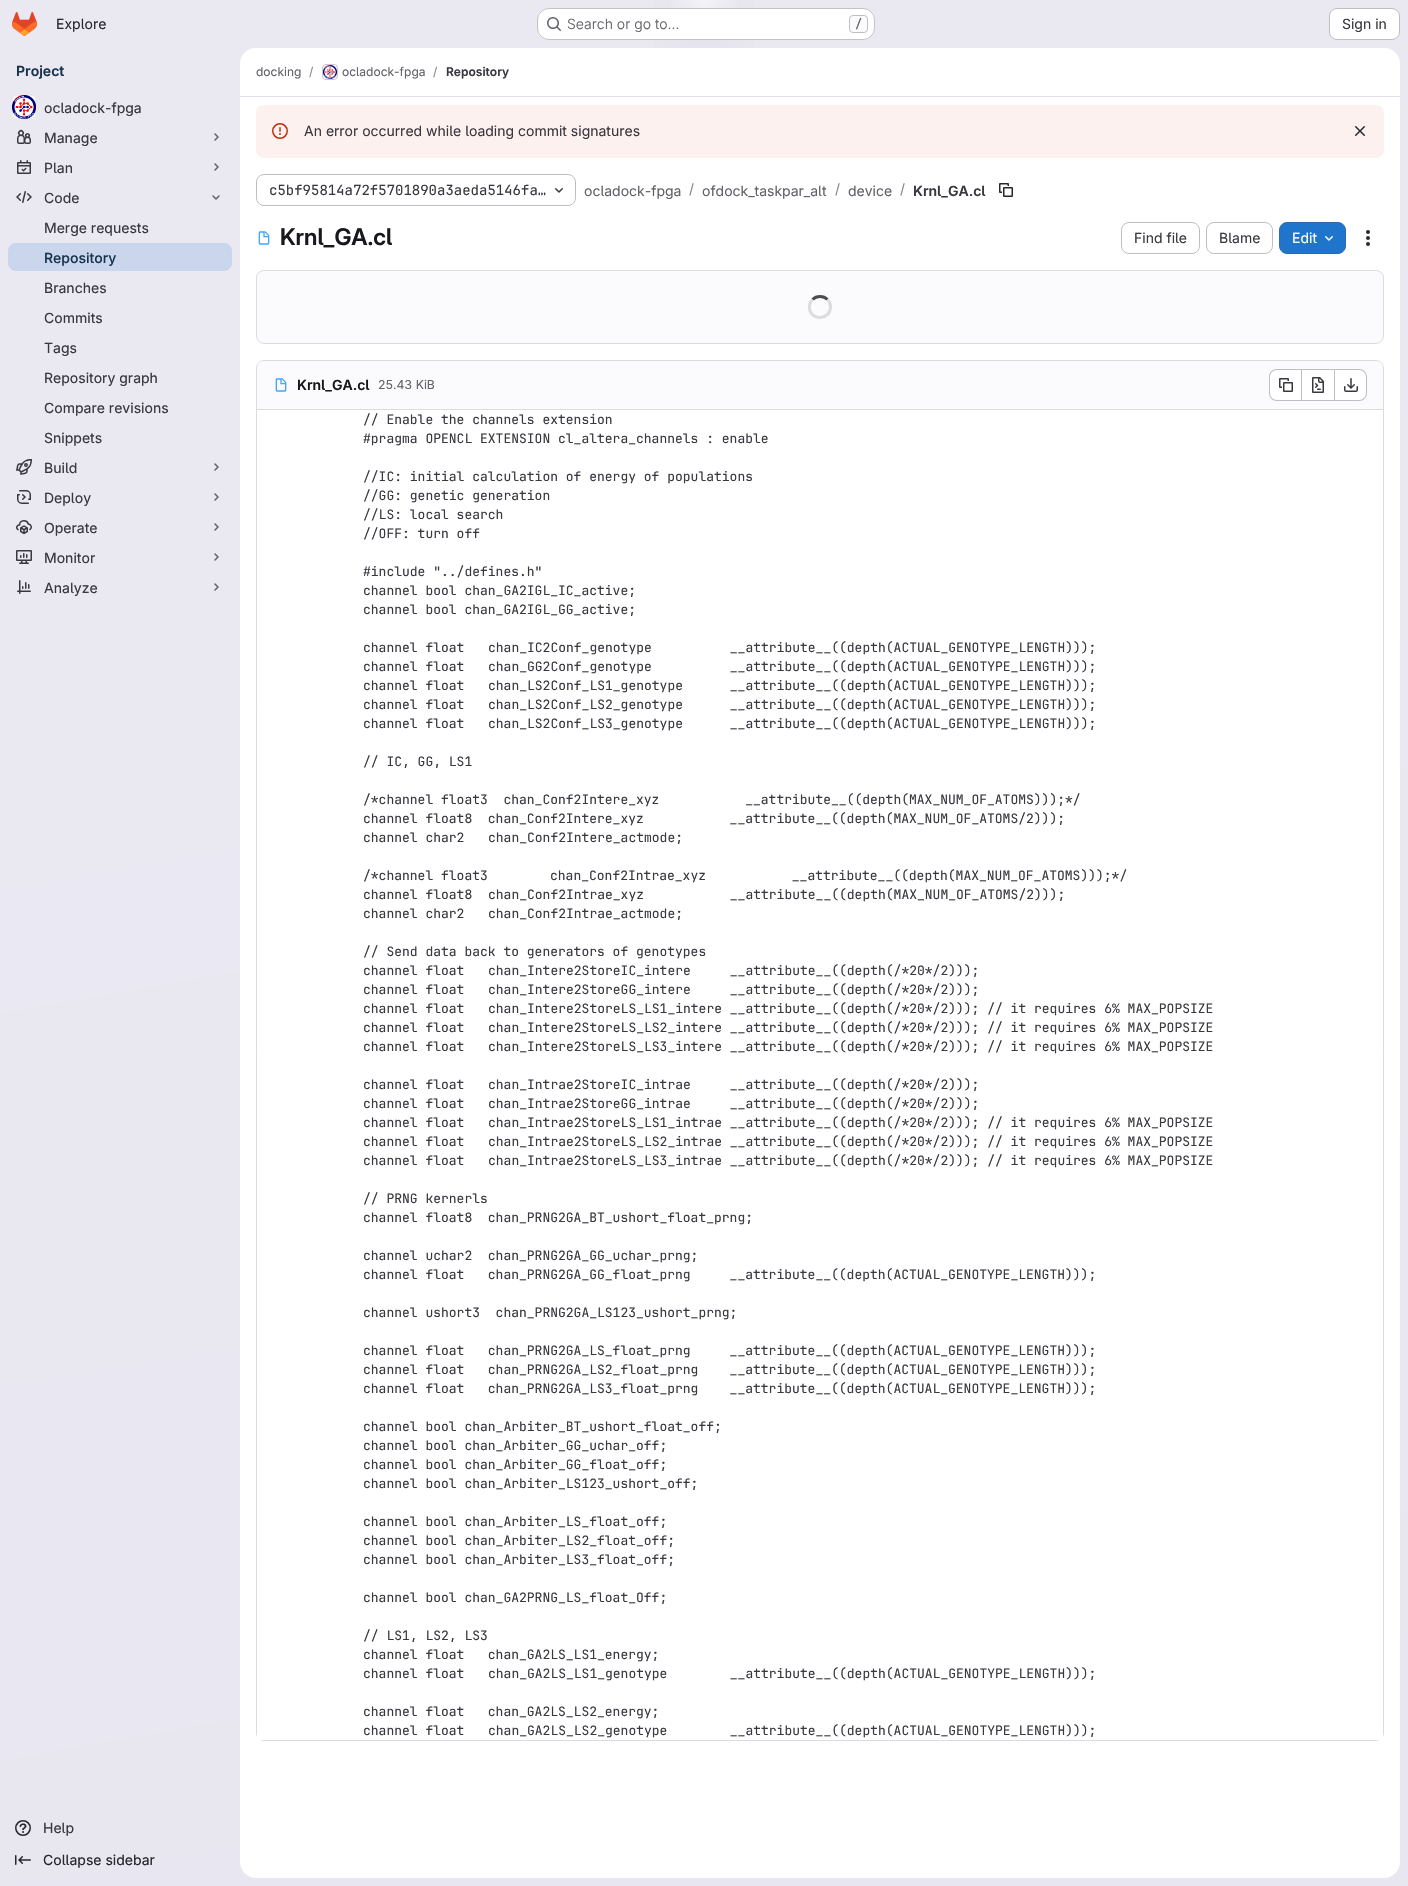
void draw(SkCanvas* canvas) {
  SkPaint paint;
  paint.setAntiAlias(true);
  auto face = [&](const char* family, int weight, float size, bool italic = false) {
    SkFontStyle style(weight, SkFontStyle::kNormal_Width,
      italic ? SkFontStyle::kItalic_Slant : SkFontStyle::kUpright_Slant);
    SkFont result(fontMgr->matchFamilyStyle(family, style), size);
    result.setSubpixel(true);
    return result;
  };
  auto paste = [&](const char* path, float x, float y, float w, float h) {
    auto image = SkImages::DeferredFromEncodedData(SkData::MakeFromFileName(path));
    canvas->drawImageRect(image, SkRect::MakeXYWH(x, y, w, h), SkSamplingOptions());
  };
  auto shape = [&](const char* data, bool evenOdd = false) {
    SkPath result = *SkParsePath::FromSVGString(data);
    if (evenOdd) result.setFillType(SkPathFillType::kEvenOdd);
    return result;
  };
  canvas->clear(0xffffffff);
  {
    const SkColor colors[] = {0xffe8e6f0, 0xffeae9f2};
    const float stops[] = {0, 0.7f};
    const SkPoint ends[] = {{886, 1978}, {522, -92}};
    paint.setShader(SkGradientShader::MakeLinear(ends, colors, stops, 2, SkTileMode::kClamp));
    paint.setAlpha(255);
  }
  canvas->drawRect(SkRect::MakeXYWH(0, 0, 1408, 1886), paint);
  {
    const SkColor colors[] = {0xffe4e2ed, 0x00e4e2ed};
    const float stops[] = {0, 0.1f};
    SkMatrix m = SkMatrix::Translate(704, 0).preScale(704, 1886);
    paint.setShader(SkGradientShader::MakeRadial({0, 0}, 1, colors, stops, 2, SkTileMode::kClamp, 0, &m));
    paint.setAlpha(255);
  }
  canvas->drawRect(SkRect::MakeXYWH(653, 0, 102, 48), paint);
  {
    const SkColor colors[] = {0xffe4e2ec, 0x00e4e2ec};
    const float stops[] = {0, 0.07f};
    SkMatrix m = SkMatrix::Translate(704, 0).preScale(704, 1886);
    paint.setShader(SkGradientShader::MakeRadial({0, 0}, 1, colors, stops, 2, SkTileMode::kClamp, 0, &m));
    paint.setAlpha(255);
  }
  canvas->drawRect(SkRect::MakeXYWH(683, 5, 42, 37), paint);
  {
    const SkColor colors[] = {0x99ffffff, 0x00ffffff};
    const float stops[] = {0, 0.02f};
    paint.setShader(SkGradientShader::MakeRadial({704, 0}, 2013, colors, stops, 2, SkTileMode::kClamp));
    paint.setAlpha(255);
  }
  canvas->drawRect(SkRect::MakeXYWH(671, 0, 66, 34), paint);
  paste("img/1.png", 12, 12, 25, 24);
  paint.setShader(nullptr);
  paint.setColor(0xffffffff);
  canvas->drawRoundRect(SkRect::MakeXYWH(537, 8, 338, 32), 12, 12, paint);
  paint.setStroke(true);
  paint.setStrokeWidth(1);
  paint.setColor(0x3d050506);
  canvas->drawRoundRect(SkRect::MakeXYWH(537.5f, 8.5f, 337, 31), 11.5f, 11.5f, paint);
  paste("img/2.png", 547, 17, 14, 14);
  paint.setStroke(false);
  paint.setColor(0xfffbfafd);
  canvas->drawRoundRect(SkRect::MakeXYWH(849.5f, 15.5f, 18, 17), 3.5f, 3.5f, paint);
  paint.setStroke(true);
  paint.setColor(0xffbfbfc3);
  canvas->drawRoundRect(SkRect::MakeXYWH(849.5f, 15.5f, 18, 17), 3.5f, 3.5f, paint);
  paint.setStroke(false);
  paint.setColor(0xffffffff);
  canvas->drawRoundRect(SkRect::MakeXYWH(1329.5f, 8.5f, 70, 31), 7.5f, 7.5f, paint);
  paint.setStroke(true);
  paint.setColor(0xffbfbfc3);
  canvas->drawRoundRect(SkRect::MakeXYWH(1329.5f, 8.5f, 70, 31), 7.5f, 7.5f, paint);
  paint.setStroke(false);
  paint.setColor(0xffffffff);
  canvas->drawRoundRect(SkRect::MakeXYWH(12, 95, 24, 24), 4, 4, paint);
  paste("img/3.png", 12, 95, 24, 24);
  paint.setStroke(true);
  paint.setColor(0x14050506);
  canvas->drawRoundRect(SkRect::MakeXYWH(12.5f, 95.5f, 23, 23), 3.5f, 3.5f, paint);
  paste("img/4.png", 17, 129, 14, 15);
  paint.setStrokeWidth(1.5f);
  paint.setStrokeCap(SkPaint::kRound_Cap);
  paint.setStrokeJoin(SkPaint::kRound_Join);
  paint.setColor(0xff626168);
  canvas->drawPath(shape("M215 134L218 137L215 140"), paint);
  paste("img/5.png", 17, 160, 14, 14);
  canvas->drawPath(shape("M215 164L218 167L215 170"), paint);
  paste("img/6.png", 16, 191, 16, 12);
  canvas->drawPath(shape("M219 196L216 199L213 196"), paint);
  paint.setStroke(false);
  paint.setColor(0xffc9d6eb);
  canvas->drawRoundRect(SkRect::MakeXYWH(8, 243, 224, 28), 8, 8, paint);
  paste("img/7.png", 16, 459, 16, 16);
  paint.setStroke(true);
  paint.setColor(0xff626168);
  canvas->drawPath(shape("M215 464L218 467L215 470"), paint);
  paste("img/8.png", 17, 490, 14, 14);
  canvas->drawPath(shape("M215 494L218 497L215 500"), paint);
  paste("img/9.png", 16, 520, 16, 15);
  canvas->drawPath(shape("M215 524L218 527L215 530"), paint);
  paste("img/10.png", 16, 550, 16, 14);
  canvas->drawPath(shape("M215 554L218 557L215 560"), paint);
  paste("img/11.png", 17, 580, 14, 14);
  canvas->drawPath(shape("M215 584L218 587L215 590"), paint);
  paste("img/12.png", 15, 1820, 16, 16);
  paste("img/13.png", 15, 1855, 16, 10);
  paint.setStroke(false);
  paint.setColor(0xffffffff);
  canvas->drawRoundRect(SkRect::MakeXYWH(240, 48, 1160, 1830), 16, 16, paint);
  canvas->drawPath(shape("M256 48H1384C1393 48 1400 55 1400 64V97H240V64C240 55 247 48 256 48Z"), paint);
  paint.setColor(0xffe1dfec);
  canvas->drawRect(SkRect::MakeXYWH(240, 96, 1160, 1), paint);
  paint.setStroke(true);
  paint.setStrokeWidth(1);
  paint.setStrokeCap(SkPaint::kButt_Cap);
  paint.setStrokeJoin(SkPaint::kMiter_Join);
  paint.setColor(0xffdcdcde);
  canvas->drawRoundRect(SkRect::MakeXYWH(322.5f, 64.5f, 15, 15), 3.5f, 3.5f, paint);
  paste("img/14.png", 323, 65, 14, 14);
  paint.setColor(0x14050506);
  canvas->drawRoundRect(SkRect::MakeXYWH(322.5f, 64.5f, 15, 15), 3.5f, 3.5f, paint);
  paint.setStroke(false);
  paint.setColor(0xfffcf1ef);
  canvas->drawRoundRect(SkRect::MakeXYWH(256, 105, 1128, 53), 8, 8, paint);
  paste("img/15.png", 272, 123, 16, 16);
  paste("img/16.png", 1355, 126, 10, 10);
  paint.setStroke(true);
  paint.setColor(0xffbfbfc3);
  canvas->drawRoundRect(SkRect::MakeXYWH(256.5f, 174.5f, 319, 31), 7.5f, 7.5f, paint);
  paste("img/17.png", 555, 188, 8, 5);
  paste("img/18.png", 999, 183, 14, 14);
  paste("img/19.png", 258, 231, 12, 14);
  canvas->drawRoundRect(SkRect::MakeXYWH(1121.5f, 222.5f, 78, 31), 7.5f, 7.5f, paint);
  canvas->drawRoundRect(SkRect::MakeXYWH(1206.5f, 222.5f, 66, 31), 7.5f, 7.5f, paint);
  paint.setStroke(false);
  paint.setColor(0xff1f75cb);
  canvas->drawRoundRect(SkRect::MakeXYWH(1279.5f, 222.5f, 66, 31), 7.5f, 7.5f, paint);
  paint.setStroke(true);
  paint.setColor(0xff2f68b4);
  canvas->drawRoundRect(SkRect::MakeXYWH(1279.5f, 222.5f, 66, 31), 7.5f, 7.5f, paint);
  paste("img/20.png", 1325, 236, 8, 5);
  paste("img/21.png", 1366, 230, 4, 16);
  paint.setStroke(false);
  paint.setColor(0xfffbfafd);
  canvas->drawRoundRect(SkRect::MakeXYWH(256.5f, 270.5f, 1127, 73), 7.5f, 7.5f, paint);
  paint.setStroke(true);
  paint.setColor(0xffdcdcde);
  canvas->drawRoundRect(SkRect::MakeXYWH(256.5f, 270.5f, 1127, 73), 7.5f, 7.5f, paint);
  paint.setStrokeWidth(3);
  paint.setColor(0xff4c4b51);
  canvas->drawPath(shape("M812.5 299.5C816.5 295.5 823.5 295.5 827.5 299.5"), paint);
  paint.setColor(0xffdcdcde);
  canvas->drawPath(shape("M827.5 299.5C829.5 301.5 830.5 304 830.5 307C830.5 319.5 812 321.5 809.5 309C809 305.5 810 302 812.5 299.5"), paint);
  paint.setStrokeWidth(1);
  canvas->drawRoundRect(SkRect::MakeXYWH(256.5f, 360.5f, 1127, 1380), 7.5f, 7.5f, paint);
  paint.setStroke(false);
  paint.setColor(0xfffbfafd);
  canvas->drawPath(shape("M264 361H1376C1380 361 1383 364 1383 368V410H257V368C257 364 260 361 264 361Z"), paint);
  paint.setColor(0xffdcdcde);
  canvas->drawRect(SkRect::MakeXYWH(257, 409, 1126, 1), paint);
  paste("img/22.png", 275, 378, 12, 14);
  paint.setColor(0xffffffff);
  canvas->drawPath(shape("M1277 370H1301V400H1277C1273 400 1270 397 1270 393V377C1270 373 1273 370 1277 370Z"), paint);
  paint.setColor(0xffbfbfc3);
  canvas->drawPath(shape("M1277 369H1301V401H1277C1272.5 401 1269 397.5 1269 393V377C1269 372.5 1272.5 369 1277 369ZM1277 370H1301V400H1277C1273 400 1270 397 1270 393V377C1270 373 1273 370 1277 370Z", true), paint);
  paste("img/23.png", 1279, 378, 14, 14);
  {
    const struct { float x, y, w, h; SkColor color; } items[] = {
      {1302, 370, 32, 30, 0xffffffff},
      {1302, 369, 32, 1, 0xffbfbfc3},
      {1302, 400, 32, 1, 0xffbfbfc3},
      {1301, 369, 1, 32, 0xffbfbfc3},
    };
    for (auto [x, y, w, h, color] : items) {
      paint.setColor(color);
      canvas->drawRect(SkRect::MakeXYWH(x, y, w, h), paint);
    }
  }
  paste("img/24.png", 1312, 377, 12, 16);
  paint.setColor(0xffffffff);
  canvas->drawPath(shape("M1335 370H1359C1363 370 1366 373 1366 377V393C1366 397 1363 400 1359 400H1335Z"), paint);
  paint.setColor(0xffbfbfc3);
  canvas->drawPath(shape("M1335 369H1359C1363.5 369 1367 372.5 1367 377V393C1367 397.5 1363.5 401 1359 401H1335ZM1335 370H1359C1363 370 1366 373 1366 377V393C1366 397 1363 400 1359 400H1335Z", true), paint);
  canvas->drawRect(SkRect::MakeXYWH(1334, 369, 1, 32), paint);
  paste("img/25.png", 1344, 378, 14, 14);
  paint.setColor(0xffffffff);
  canvas->drawPath(shape("M257 410H1383V1736C1383 1738 1381 1740 1379 1740H261C259 1740 257 1738 257 1736Z"), paint);
  canvas->drawPath(shape("M257 410H353V1740H261C259 1740 257 1738 257 1736Z"), paint);
  canvas->drawPath(shape("M361 410H1383V1736C1383 1738 1381 1740 1379 1740H361Z"), paint);
  auto f0 = face("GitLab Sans", 400, 14);
  paint.setColor(0xff28272d);
  canvas->drawString("Explore", 56, 29, f0, paint);
  auto f1 = face("GitLab Sans", 300, 14);
  paint.setColor(0xff626168);
  canvas->drawString("Search or go to…", 567, 29, f1, paint);
  auto f2 = face("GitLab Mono", 500, 12);
  canvas->drawString("/", 855, 28, f2, paint);
  paint.setColor(0xff3a383f);
  canvas->drawString("Sign in", 1342, 29, f0, paint);
  auto f3 = face("GitLab Sans", 600, 14);
  paint.setColor(0xff18334e);
  canvas->drawString("Project", 16, 76, f3, paint);
  auto f4 = face("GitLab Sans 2", 400, 14);
  paint.setColor(0xff3a383f);
  {
    const struct { const char* s; float x, y; } items[] = {
      {"ocladock-fpga", 44, 113},
      {"Manage", 44, 143},
      {"Plan", 44, 173},
      {"Code", 44, 203},
      {"Merge requests", 44, 233},
    };
    for (auto [s, x, y] : items) {
      canvas->drawString(s, x, y, f4, paint);
    }
  }
  auto f5 = face("GitLab Sans", 500, 14);
  paint.setColor(0xff18334e);
  canvas->drawString("Repository", 44, 263, f5, paint);
  paint.setColor(0xff3a383f);
  {
    const struct { const char* s; float x, y; } items[] = {
      {"Branches", 44, 293},
      {"Commits", 44, 323},
      {"Tags", 44, 353},
      {"Repository graph", 44, 383},
      {"Compare revisions", 44, 413},
      {"Snippets", 44, 443},
      {"Build", 44, 473},
      {"Deploy", 44, 503},
      {"Operate", 44, 533},
      {"Monitor", 44, 563},
      {"Analyze", 44, 593},
      {"Help", 43, 1833},
    };
    for (auto [s, x, y] : items) {
      canvas->drawString(s, x, y, f4, paint);
    }
  }
  paint.setColor(0xff28272d);
  canvas->drawString("Collapse sidebar", 43, 1865, f4, paint);
  auto f6 = face("GitLab Sans", 400, 12);
  paint.setColor(0xff626168);
  canvas->drawString("docking", 256, 76, f6, paint);
  paint.setColor(0xff89888d);
  canvas->drawString("/", 309, 76, f6, paint);
  paint.setColor(0xff626168);
  canvas->drawString("ocladock-fpga", 342, 76, f6, paint);
  paint.setColor(0xff89888d);
  canvas->drawString("/", 433, 76, f6, paint);
  auto f7 = face("GitLab Sans", 600, 12);
  paint.setColor(0xff3a383f);
  canvas->drawString("Repository", 446, 76, f7, paint);
  canvas->drawString("An error occurred while loading commit signatures", 304, 136, f0, paint);
  auto f8 = face("GitLab Mono", 400, 14);
  canvas->drawString("c5bf95814a72f5701890a3aeda5146fa…", 269, 195, f8, paint);
  paint.setColor(0xff626168);
  canvas->drawString("ocladock-fpga", 584, 196, f0, paint);
  paint.setColor(0xff89888d);
  canvas->drawString("/", 689, 194, f0, paint);
  paint.setColor(0xff626168);
  canvas->drawString("ofdock_taskpar_alt", 702, 196, f0, paint);
  paint.setColor(0xff89888d);
  canvas->drawString("/", 835, 194, f0, paint);
  paint.setColor(0xff626168);
  canvas->drawString("device", 848, 196, f0, paint);
  paint.setColor(0xff89888d);
  canvas->drawString("/", 900, 194, f0, paint);
  paint.setColor(0xff3a383f);
  canvas->drawString("Krnl_GA.cl", 913, 196, f3, paint);
  auto f9 = face("GitLab Sans 2", 600, 23);
  paint.setColor(0xff18171d);
  canvas->drawString("Krnl_GA.cl", 280, 245, f9, paint);
  paint.setColor(0xff3a383f);
  canvas->drawString("Find file", 1134, 243, f0, paint);
  canvas->drawString("Blame", 1219, 243, f0, paint);
  paint.setColor(0xffffffff);
  canvas->drawString("Edit", 1292, 243, f0, paint);
  paint.setColor(0xff18171d);
  canvas->drawString("Krnl_GA.cl", 297, 390, f3, paint);
  auto f10 = face("GitLab Sans", 400, 12.25f);
  paint.setColor(0xff626168);
  canvas->drawString("25.43 KiB", 378, 389, f10, paint);
  auto f11 = face("GitLab Mono", 400, 13);
  paint.setColor(0xff3a383f);
  {
    const struct { const char* s; float x, y; } items[] = {
      {"// Enable the channels extension", 363, 424},
      {"#pragma OPENCL EXTENSION cl_altera_channels : enable", 363, 443},
      {"//IC: initial calculation of energy of populations", 363, 481},
      {"//GG: genetic generation", 363, 500},
      {"//LS: local search", 363, 519},
      {"//OFF: turn off", 363, 538},
      {"#include \"../defines.h\"", 363, 576},
      {"channel bool chan_GA2IGL_IC_active;", 363, 595},
      {"channel bool chan_GA2IGL_GG_active;", 363, 614},
      {"channel float", 363, 652},
      {"chan_IC2Conf_genotype          __attribute__((depth(ACTUAL_GENOTYPE_LENGTH)));", 488, 652},
      {"channel float", 363, 671},
      {"chan_GG2Conf_genotype          __attribute__((depth(ACTUAL_GENOTYPE_LENGTH)));", 488, 671},
      {"channel float", 363, 690},
      {"chan_LS2Conf_LS1_genotype      __attribute__((depth(ACTUAL_GENOTYPE_LENGTH)));", 488, 690},
      {"channel float", 363, 709},
      {"chan_LS2Conf_LS2_genotype      __attribute__((depth(ACTUAL_GENOTYPE_LENGTH)));", 488, 709},
      {"channel float", 363, 728},
      {"chan_LS2Conf_LS3_genotype      __attribute__((depth(ACTUAL_GENOTYPE_LENGTH)));", 488, 728},
      {"// IC, GG, LS1", 363, 766},
      {"/*channel float3  chan_Conf2Intere_xyz           __attribute__((depth(MAX_NUM_OF_ATOMS)));*/", 363, 804},
      {"channel float8  chan_Conf2Intere_xyz           __attribute__((depth(MAX_NUM_OF_ATOMS/2)));", 363, 823},
      {"channel char2", 363, 842},
      {"chan_Conf2Intere_actmode;", 488, 842},
      {"/*channel float3", 363, 880},
      {"chan_Conf2Intrae_xyz           __attribute__((depth(MAX_NUM_OF_ATOMS)));*/", 550, 880},
      {"channel float8", 363, 899},
      {"chan_Conf2Intrae_xyz           __attribute__((depth(MAX_NUM_OF_ATOMS/2)));", 488, 899},
      {"channel char2", 363, 918},
      {"chan_Conf2Intrae_actmode;", 488, 918},
      {"// Send data back to generators of genotypes", 363, 956},
      {"channel float", 363, 975},
      {"chan_Intere2StoreIC_intere     __attribute__((depth(/*20*/2)));", 488, 975},
      {"channel float", 363, 994},
      {"chan_Intere2StoreGG_intere     __attribute__((depth(/*20*/2)));", 488, 994},
      {"channel float", 363, 1013},
      {"chan_Intere2StoreLS_LS1_intere __attribute__((depth(/*20*/2))); // it requires 6% MAX_POPSIZE", 488, 1013},
      {"channel float", 363, 1032},
      {"chan_Intere2StoreLS_LS2_intere __attribute__((depth(/*20*/2))); // it requires 6% MAX_POPSIZE", 488, 1032},
      {"channel float", 363, 1051},
      {"chan_Intere2StoreLS_LS3_intere __attribute__((depth(/*20*/2))); // it requires 6% MAX_POPSIZE", 488, 1051},
      {"channel float", 363, 1089},
      {"chan_Intrae2StoreIC_intrae     __attribute__((depth(/*20*/2)));", 488, 1089},
      {"channel float", 363, 1108},
      {"chan_Intrae2StoreGG_intrae     __attribute__((depth(/*20*/2)));", 488, 1108},
      {"channel float", 363, 1127},
      {"chan_Intrae2StoreLS_LS1_intrae __attribute__((depth(/*20*/2))); // it requires 6% MAX_POPSIZE", 488, 1127},
      {"channel float", 363, 1146},
      {"chan_Intrae2StoreLS_LS2_intrae __attribute__((depth(/*20*/2))); // it requires 6% MAX_POPSIZE", 488, 1146},
      {"channel float", 363, 1165},
      {"chan_Intrae2StoreLS_LS3_intrae __attribute__((depth(/*20*/2))); // it requires 6% MAX_POPSIZE", 488, 1165},
      {"// PRNG kernerls", 363, 1203},
      {"channel float8  chan_PRNG2GA_BT_ushort_float_prng;", 363, 1222},
      {"channel uchar2  chan_PRNG2GA_GG_uchar_prng;", 363, 1260},
      {"channel float   chan_PRNG2GA_GG_float_prng     __attribute__((depth(ACTUAL_GENOTYPE_LENGTH)));", 363, 1279},
      {"channel ushort3  chan_PRNG2GA_LS123_ushort_prng;", 363, 1317},
      {"channel float   chan_PRNG2GA_LS_float_prng     __attribute__((depth(ACTUAL_GENOTYPE_LENGTH)));", 363, 1355},
      {"channel float   chan_PRNG2GA_LS2_float_prng    __attribute__((depth(ACTUAL_GENOTYPE_LENGTH)));", 363, 1374},
      {"channel float   chan_PRNG2GA_LS3_float_prng    __attribute__((depth(ACTUAL_GENOTYPE_LENGTH)));", 363, 1393},
      {"channel bool chan_Arbiter_BT_ushort_float_off;", 363, 1431},
      {"channel bool chan_Arbiter_GG_uchar_off;", 363, 1450},
      {"channel bool chan_Arbiter_GG_float_off;", 363, 1469},
      {"channel bool chan_Arbiter_LS123_ushort_off;", 363, 1488},
      {"channel bool chan_Arbiter_LS_float_off;", 363, 1526},
      {"channel bool chan_Arbiter_LS2_float_off;", 363, 1545},
      {"channel bool chan_Arbiter_LS3_float_off;", 363, 1564},
      {"channel bool chan_GA2PRNG_LS_float_Off;", 363, 1602},
      {"// LS1, LS2, LS3", 363, 1640},
      {"channel float   chan_GA2LS_LS1_energy;", 363, 1659},
      {"channel float", 363, 1678},
      {"chan_GA2LS_LS1_genotype        __attribute__((depth(ACTUAL_GENOTYPE_LENGTH)));", 488, 1678},
      {"channel float   chan_GA2LS_LS2_energy;", 363, 1716},
      {"channel float", 363, 1735},
      {"chan_GA2LS_LS2_genotype        __attribute__((depth(ACTUAL_GENOTYPE_LENGTH)));", 488, 1735},
    };
    for (auto [s, x, y] : items) {
      canvas->drawString(s, x, y, f11, paint);
    }
  }
}
